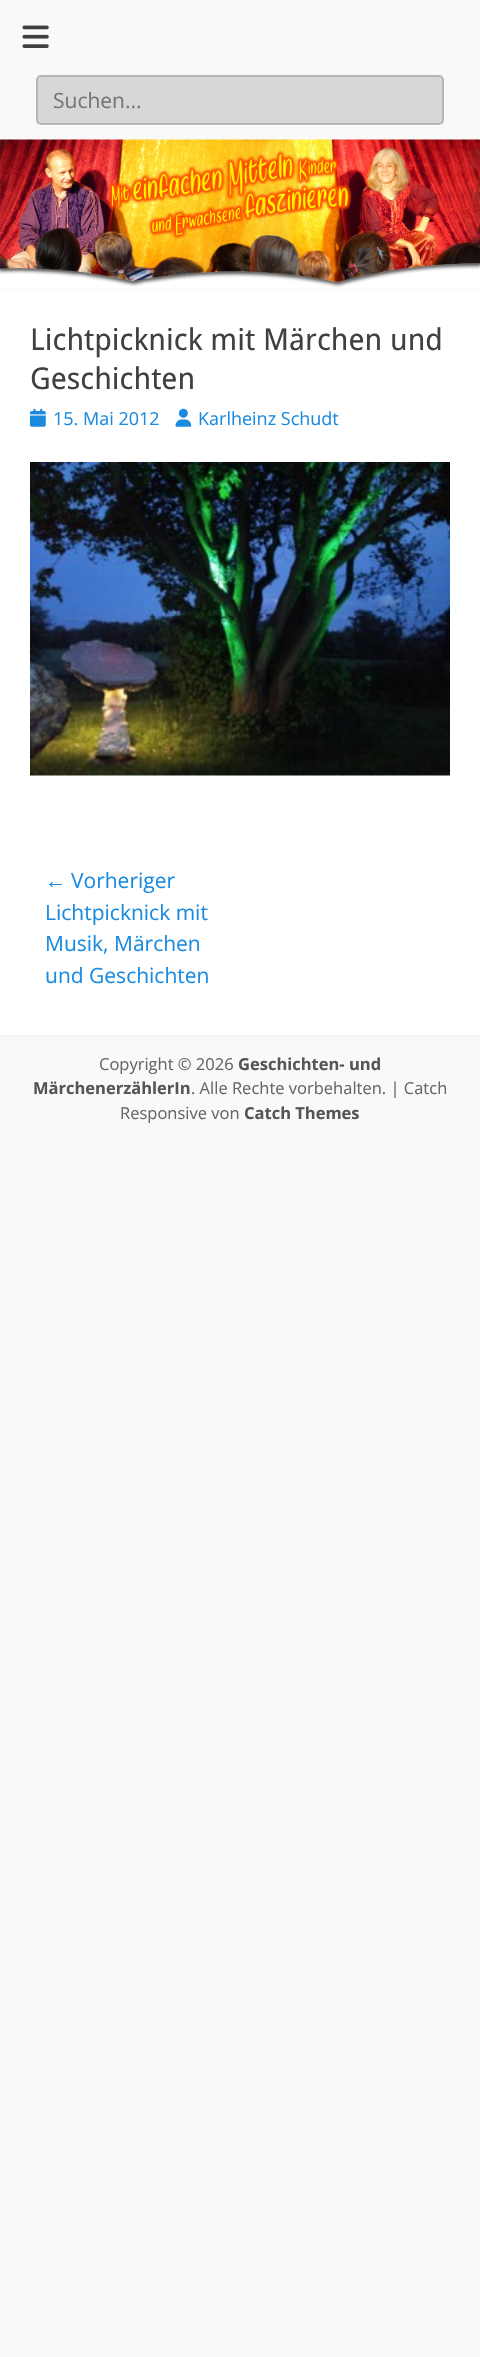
void draw(SkCanvas* canvas) {
  SkPaint paint;
  paint.setAntiAlias(true);
  auto face = [&](const char* family, int weight, float size, bool italic = false) {
    SkFontStyle style(weight, SkFontStyle::kNormal_Width,
      italic ? SkFontStyle::kItalic_Slant : SkFontStyle::kUpright_Slant);
    SkFont result(fontMgr->matchFamilyStyle(family, style), size);
    result.setSubpixel(true);
    return result;
  };
  auto paste = [&](const char* path, float x, float y, float w, float h) {
    auto image = SkImages::DeferredFromEncodedData(SkData::MakeFromFileName(path));
    canvas->drawImageRect(image, SkRect::MakeXYWH(x, y, w, h), SkSamplingOptions());
  };
  auto shape = [&](const char* data, bool evenOdd = false) {
    SkPath result = *SkParsePath::FromSVGString(data);
    if (evenOdd) result.setFillType(SkPathFillType::kEvenOdd);
    return result;
  };
  canvas->clear(0xfff9f9f9);
  paste("img/1.png", 22, 25, 27, 23);
  paint.setColor(0xffffffff);
  canvas->drawPath(shape("M36 120V121C36 124 38 126 41 126H439C442 126 444 124 444 121V120C444 122 442 124 440 124H40C38 124 36 122 36 120Z"), paint);
  paint.setColor(0xffd7d7d7);
  canvas->drawRoundRect(SkRect::MakeXYWH(37, 76, 406, 48), 4, 4, paint);
  paint.setStroke(true);
  paint.setStrokeWidth(2);
  paint.setColor(0xffb6b6b6);
  canvas->drawRoundRect(SkRect::MakeXYWH(37, 76, 406, 48), 4, 4, paint);
  paste("img/2.png", 0, 139, 480, 150);
  paint.setStroke(false);
  paint.setColor(0xffffffff);
  canvas->drawRect(SkRect::MakeXYWH(0, 290, 480, 745), paint);
  paste("img/3.png", 30, 408, 16, 19);
  paste("img/4.png", 175, 408, 17, 19);
  paste("img/5.png", 30, 462, 420, 314);
  paint.setColor(0xfff4f4f4);
  canvas->drawRect(SkRect::MakeXYWH(0, 1035, 480, 2), paint);
  auto f0 = face("Open Sans", 400, 21);
  paint.setColor(0xff757575);
  canvas->drawString("Suchen...", 53, 108, f0, paint);
  auto f1 = face("Droid Sans", 400, 30);
  paint.setColor(0xff404040);
  canvas->drawString("Lichtpicknick mit Märchen und", 30, 350, f1, paint);
  canvas->drawString("Geschichten", 30, 389, f1, paint);
  auto f2 = face("Open Sans", 400, 18);
  paint.setColor(0xff1b8be0);
  canvas->drawString("15. Mai 2012", 53, 425, f2, paint);
  canvas->drawString("Karlheinz Schudt", 198, 425, f2, paint);
  auto f3 = face("Liberation Sans", 400, 21);
  canvas->drawString("←", 45, 888, f3, paint);
  {
    const struct { const char* s; float x, y; } items[] = {
      {"Vorheriger", 71, 888},
      {"Lichtpicknick mit", 45, 920},
      {"Musik, Märchen", 45, 951},
      {"und Geschichten", 45, 983},
    };
    for (auto [s, x, y] : items) {
      canvas->drawString(s, x, y, f0, paint);
    }
  }
  auto f4 = face("Open Sans", 400, 16.5f);
  paint.setColor(0xff666666);
  canvas->drawString("Copyright © 2026", 99, 1070, f4, paint);
  auto f5 = face("Open Sans", 700, 16.5f);
  paint.setColor(0xff555555);
  canvas->drawString("Geschichten- und", 238, 1070, f5, paint);
  canvas->drawString("MärchenerzählerIn", 33, 1094, f5, paint);
  paint.setColor(0xff666666);
  canvas->drawString(". Alle Rechte vorbehalten. | Catch", 191, 1094, f4, paint);
  canvas->drawString("Responsive von", 120, 1119, f4, paint);
  paint.setColor(0xff555555);
  canvas->drawString("Catch Themes", 244, 1119, f5, paint);
}
